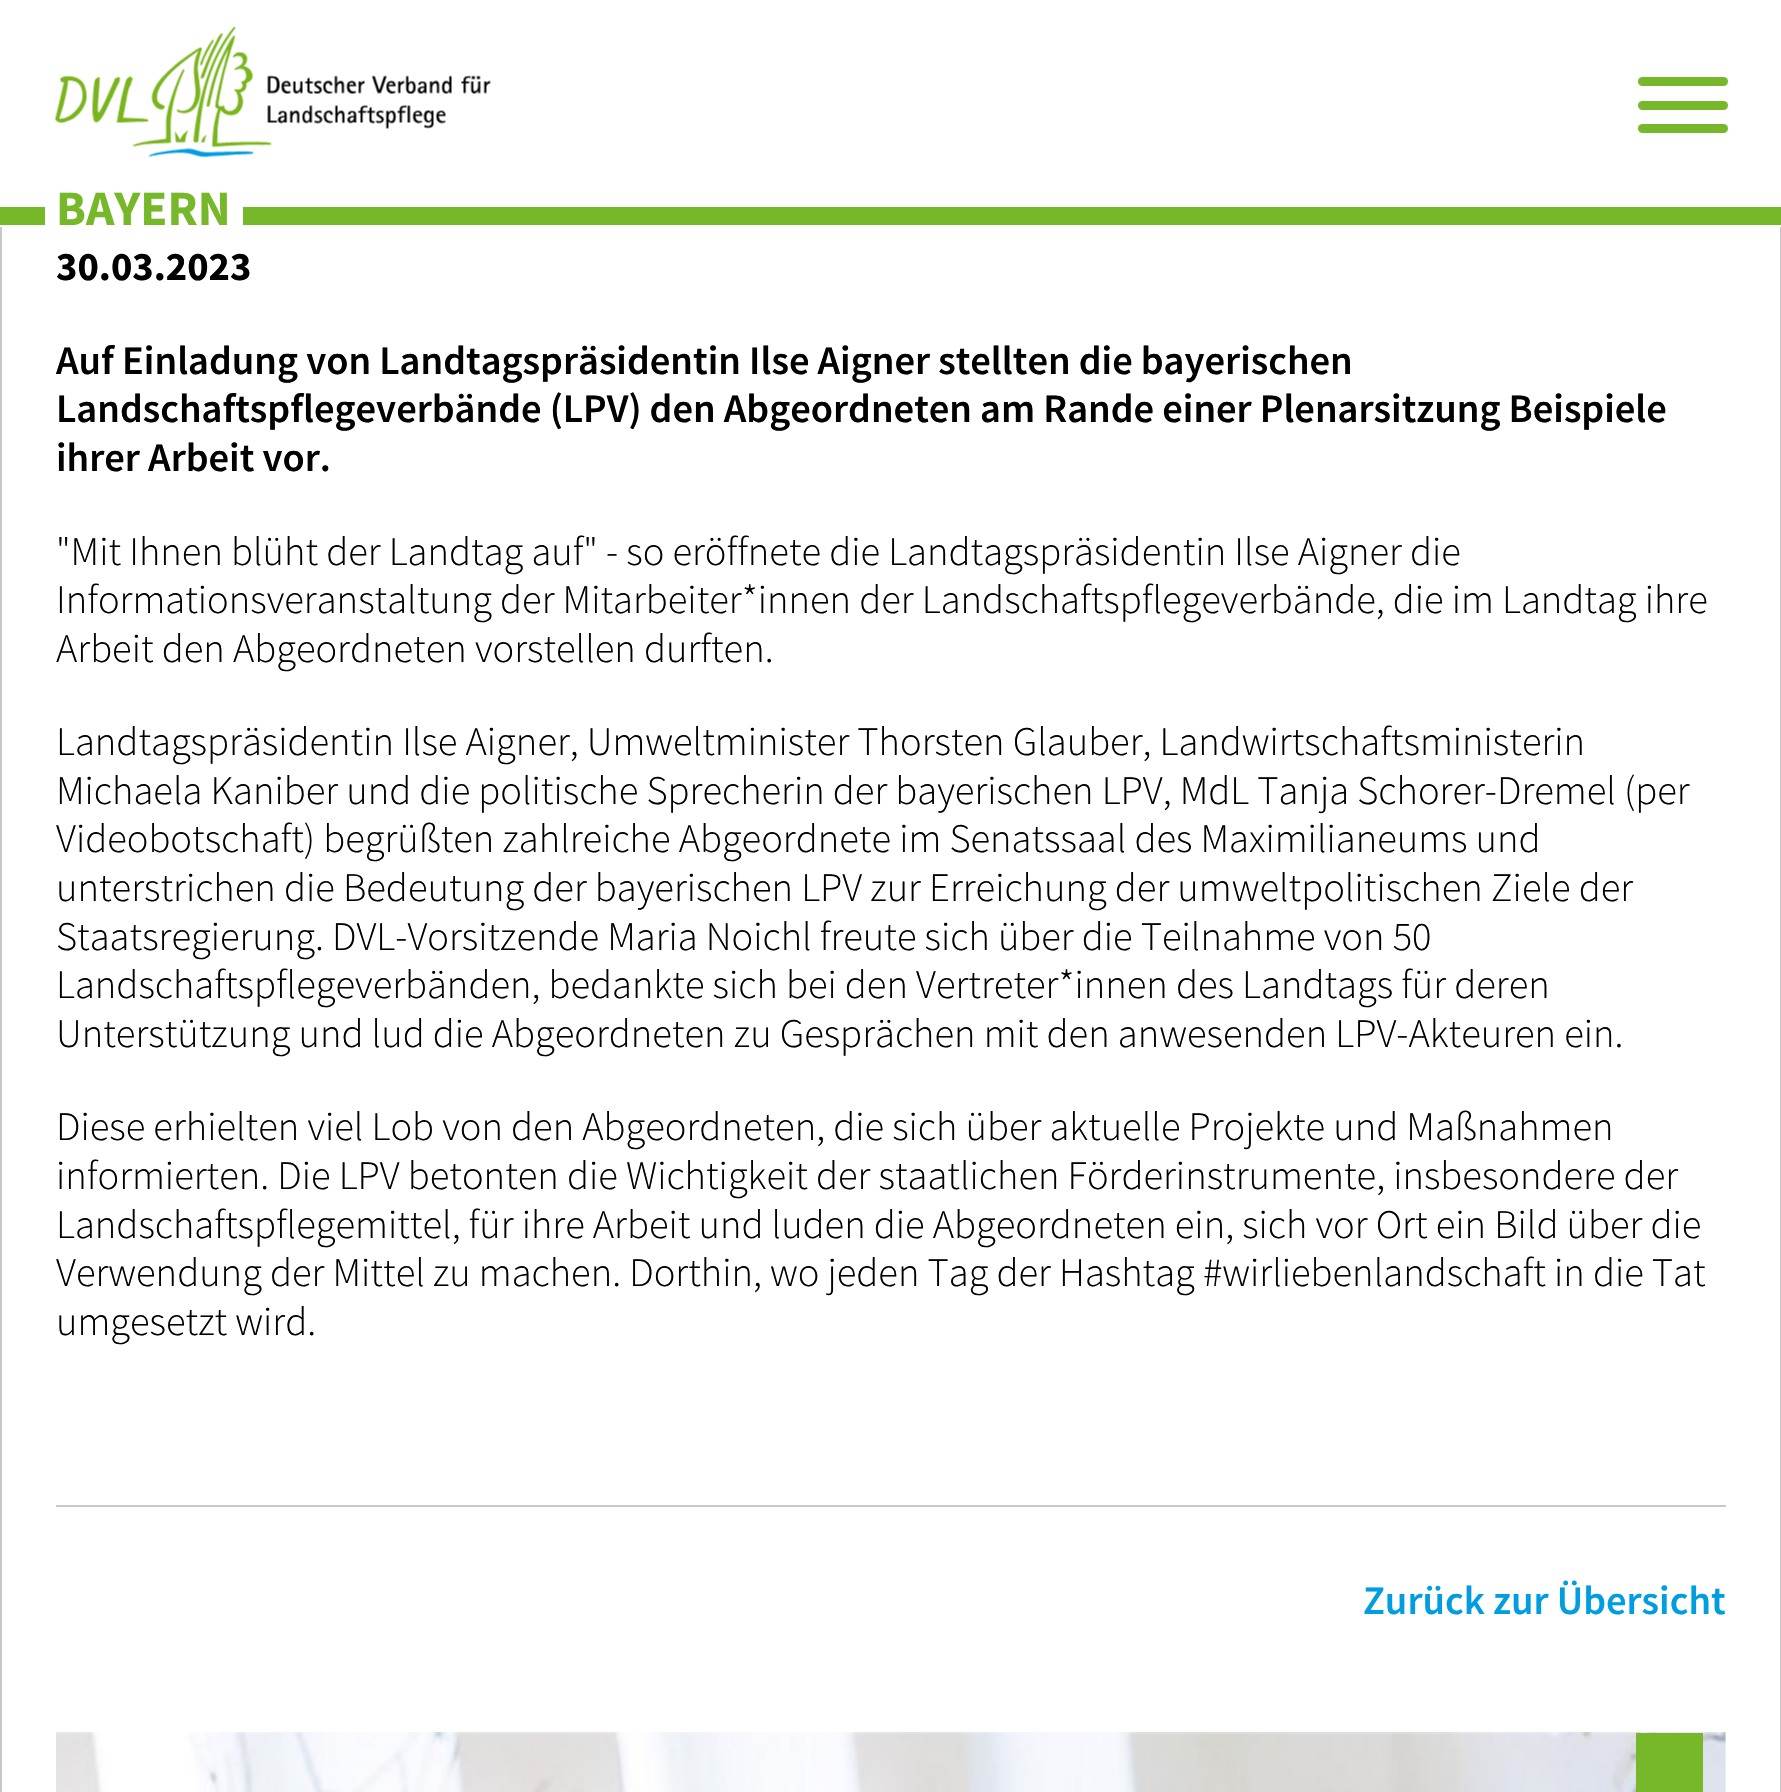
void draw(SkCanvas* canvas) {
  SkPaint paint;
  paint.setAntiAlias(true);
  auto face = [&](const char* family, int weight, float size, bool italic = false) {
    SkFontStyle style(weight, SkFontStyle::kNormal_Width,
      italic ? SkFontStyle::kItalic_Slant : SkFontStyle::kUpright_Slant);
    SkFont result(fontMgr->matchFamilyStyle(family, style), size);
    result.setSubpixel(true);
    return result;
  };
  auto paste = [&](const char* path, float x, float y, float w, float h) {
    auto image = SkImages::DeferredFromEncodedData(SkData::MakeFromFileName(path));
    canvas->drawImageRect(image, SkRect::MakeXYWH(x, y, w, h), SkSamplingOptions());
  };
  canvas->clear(0xffffffff);
  paint.setStroke(true);
  paint.setStrokeWidth(2);
  paint.setColor(0xffc8c8c8);
  canvas->drawRect(SkRect::MakeXYWH(1, -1, 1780, 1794), paint);
  paint.setStroke(false);
  paint.setColor(0xffffffff);
  canvas->drawRect(SkRect::MakeXYWH(0, 0, 1781, 207), paint);
  paint.setColor(0xff76b82a);
  canvas->drawRect(SkRect::MakeXYWH(0, 207, 1781, 18), paint);
  paste("img/1.png", 55, 26, 436, 132);
  canvas->drawRoundRect(SkRect::MakeXYWH(1638, 77, 90, 9), 4.5f, 4.5f, paint);
  canvas->drawRoundRect(SkRect::MakeXYWH(1638, 101, 90, 9), 4.5f, 4.5f, paint);
  canvas->drawRoundRect(SkRect::MakeXYWH(1638, 124, 90, 9), 4.5f, 4.5f, paint);
  {
    const struct { float x, y, w, h; SkColor color; } items[] = {
      {45, 207, 198, 18, 0xffffffff},
      {0, 225, 1781, 2, 0xffffffff},
      {56, 1505, 1670, 2, 0xffc8c8c8},
    };
    for (auto [x, y, w, h, color] : items) {
      paint.setColor(color);
      canvas->drawRect(SkRect::MakeXYWH(x, y, w, h), paint);
    }
  }
  paste("img/2.png", 56, 1732, 1670, 60);
  paint.setColor(0xff76b82a);
  canvas->drawRect(SkRect::MakeXYWH(1636, 1733, 67, 59), paint);
  auto f0 = face("Source Sans Pro", 700, 49.5f);
  canvas->drawString("BAYERN", 56, 225, f0, paint);
  auto f1 = face("Source Sans Pro", 700, 40.5f);
  paint.setColor(0xff000000);
  canvas->drawString("30.03.2023", 56, 280, f1, paint);
  auto f2 = face("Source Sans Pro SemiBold", 600, 40.5f);
  {
    const struct { const char* s; float x, y; } items[] = {
      {"Auf Einladung von Landtagspräsidentin Ilse Aigner stellten die bayerischen", 56, 374},
      {"Landschaftspflegeverbände (LPV) den Abgeordneten am Rande einer Plenarsitzung Beispiele", 56, 422},
      {"ihrer Arbeit vor.", 56, 471},
    };
    for (auto [s, x, y] : items) {
      canvas->drawString(s, x, y, f2, paint);
    }
  }
  auto f3 = face("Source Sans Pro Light", 300, 40.5f);
  {
    const struct { const char* s; float x, y; } items[] = {
      {"\"Mit Ihnen blüht der Landtag auf\" - so eröffnete die Landtagspräsidentin Ilse Aigner die", 56, 565},
      {"Informationsveranstaltung der Mitarbeiter*innen der Landschaftspflegeverbände, die im Landtag ihre", 56, 613},
      {"Arbeit den Abgeordneten vorstellen durften.", 56, 662},
      {"Landtagspräsidentin Ilse Aigner, Umweltminister Thorsten Glauber, Landwirtschaftsministerin", 56, 755},
      {"Michaela Kaniber und die politische Sprecherin der bayerischen LPV, MdL Tanja Schorer-Dremel (per", 56, 804},
      {"Videobotschaft) begrüßten zahlreiche Abgeordnete im Senatssaal des Maximilianeums und", 56, 852},
      {"unterstrichen die Bedeutung der bayerischen LPV zur Erreichung der umweltpolitischen Ziele der", 56, 901},
      {"Staatsregierung. DVL-Vorsitzende Maria Noichl freute sich über die Teilnahme von 50", 56, 950},
      {"Landschaftspflegeverbänden, bedankte sich bei den Vertreter*innen des Landtags für deren", 56, 998},
      {"Unterstützung und lud die Abgeordneten zu Gesprächen mit den anwesenden LPV-Akteuren ein.", 56, 1047},
      {"Diese erhielten viel Lob von den Abgeordneten, die sich über aktuelle Projekte und Maßnahmen", 56, 1140},
      {"informierten. Die LPV betonten die Wichtigkeit der staatlichen Förderinstrumente, insbesondere der", 56, 1189},
      {"Landschaftspflegemittel, für ihre Arbeit und luden die Abgeordneten ein, sich vor Ort ein Bild über die", 56, 1238},
      {"Verwendung der Mittel zu machen. Dorthin, wo jeden Tag der Hashtag #wirliebenlandschaft in die Tat", 56, 1286},
      {"umgesetzt wird.", 56, 1335},
    };
    for (auto [s, x, y] : items) {
      canvas->drawString(s, x, y, f3, paint);
    }
  }
  paint.setColor(0xff009de0);
  canvas->drawString("Zurück zur Übersicht", 1363, 1614, f2, paint);
}
